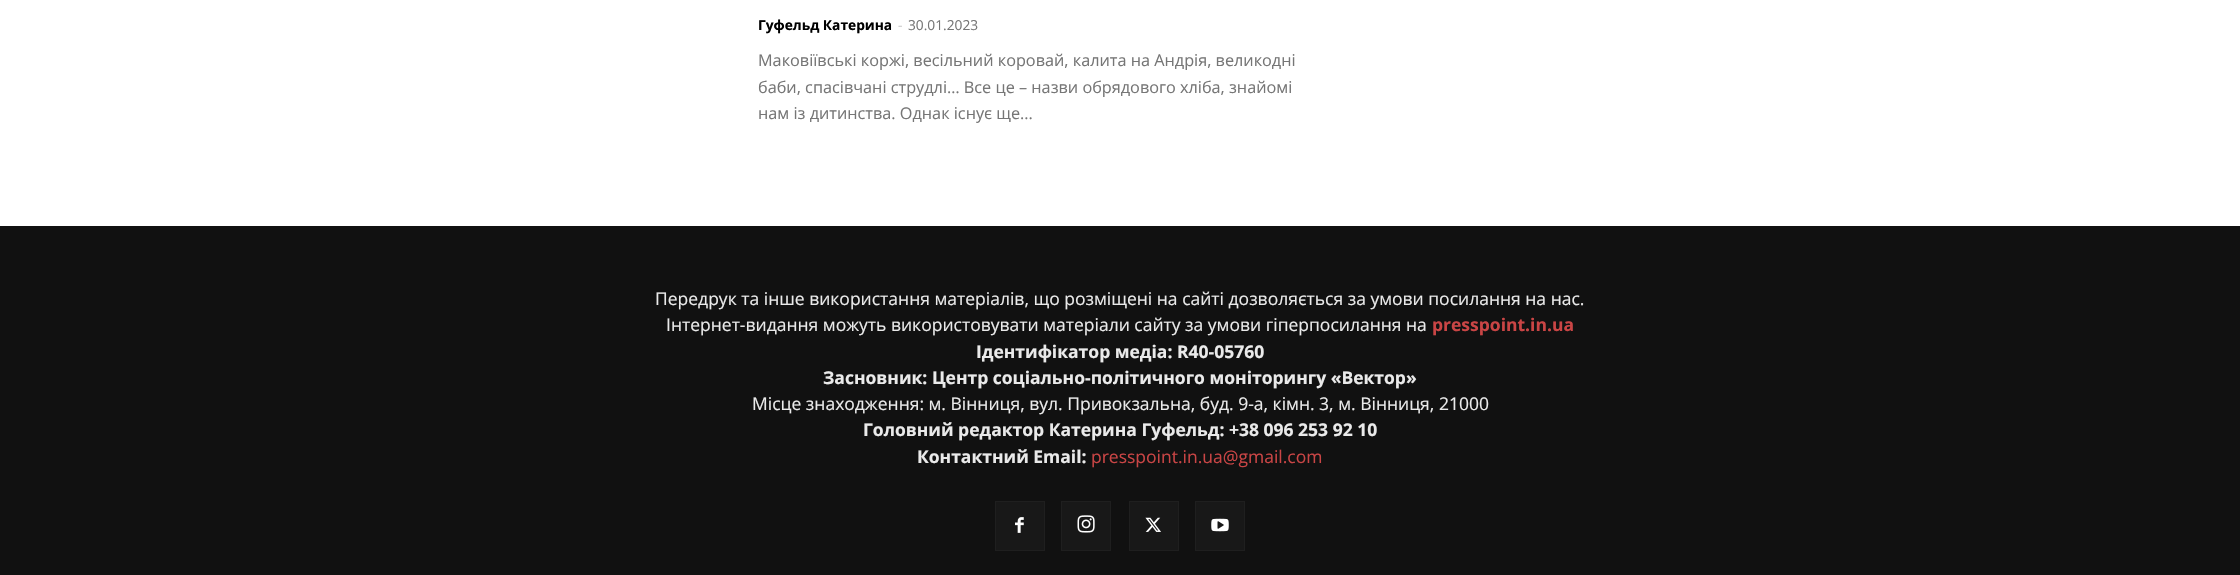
void draw(SkCanvas* canvas) {
  SkPaint paint;
  paint.setAntiAlias(true);
  auto face = [&](const char* family, int weight, float size, bool italic = false) {
    SkFontStyle style(weight, SkFontStyle::kNormal_Width,
      italic ? SkFontStyle::kItalic_Slant : SkFontStyle::kUpright_Slant);
    SkFont result(fontMgr->matchFamilyStyle(family, style), size);
    result.setSubpixel(true);
    return result;
  };
  auto paste = [&](const char* path, float x, float y, float w, float h) {
    auto image = SkImages::DeferredFromEncodedData(SkData::MakeFromFileName(path));
    canvas->drawImageRect(image, SkRect::MakeXYWH(x, y, w, h), SkSamplingOptions());
  };
  canvas->clear(0xffffffff);
  paint.setColor(0xff111111);
  canvas->drawRect(SkRect::MakeXYWH(0, 226, 2240, 349), paint);
  paint.setColor(0xff181818);
  canvas->drawRect(SkRect::MakeXYWH(996, 502, 48, 48), paint);
  paste("img/1.png", 1015, 517, 9, 16);
  paint.setStroke(true);
  paint.setStrokeWidth(1);
  paint.setColor(0xff1f1f1f);
  canvas->drawRect(SkRect::MakeXYWH(995.5f, 501.5f, 49, 49), paint);
  paint.setStroke(false);
  paint.setColor(0xff181818);
  canvas->drawRect(SkRect::MakeXYWH(1062, 502, 48, 48), paint);
  paste("img/2.png", 1077, 515, 18, 18);
  paint.setStroke(true);
  paint.setColor(0xff1f1f1f);
  canvas->drawRect(SkRect::MakeXYWH(1061.5f, 501.5f, 49, 49), paint);
  paint.setStroke(false);
  paint.setColor(0xff181818);
  canvas->drawRect(SkRect::MakeXYWH(1130, 502, 48, 48), paint);
  paste("img/3.png", 1145, 517, 16, 15);
  paint.setStroke(true);
  paint.setColor(0xff1f1f1f);
  canvas->drawRect(SkRect::MakeXYWH(1129.5f, 501.5f, 49, 49), paint);
  paint.setStroke(false);
  paint.setColor(0xff181818);
  canvas->drawRect(SkRect::MakeXYWH(1196, 502, 48, 48), paint);
  paste("img/4.png", 1211, 518, 18, 14);
  paint.setStroke(true);
  paint.setColor(0xff1f1f1f);
  canvas->drawRect(SkRect::MakeXYWH(1195.5f, 501.5f, 49, 49), paint);
  auto f0 = face("Open Sans", 700, 13.75f);
  paint.setStroke(false);
  paint.setColor(0xff000000);
  canvas->drawString("Гуфельд Катерина", 758, 30, f0, paint);
  auto f1 = face("Open Sans", 400, 13.75f);
  paint.setColor(0xffcccccc);
  canvas->drawString("-", 898, 30, f1, paint);
  paint.setColor(0xff767676);
  canvas->drawString("30.01.2023", 908, 30, f1, paint);
  auto f2 = face("Open Sans", 400, 16.25f);
  {
    const struct { const char* s; float x, y; } items[] = {
      {"Маковіївські коржі, весільний коровай, калита на Андрія, великодні", 758, 66},
      {"баби, спасівчані струдлі… Все це – назви обрядового хліба, знайомі", 758, 93},
      {"нам із дитинства. Однак існує ще...", 758, 119},
    };
    for (auto [s, x, y] : items) {
      canvas->drawString(s, x, y, f2, paint);
    }
  }
  auto f3 = face("Open Sans", 400, 17.5f);
  paint.setColor(0xffeaeaea);
  canvas->drawString("Передрук та інше використання матеріалів, що розміщені на сайті дозволяється за умови посилання на нас.", 655, 305, f3, paint);
  canvas->drawString("Інтернет-видання можуть використовувати матеріали сайту за умови гіперпосилання на", 666, 331, f3, paint);
  auto f4 = face("Open Sans", 700, 17.5f);
  paint.setColor(0xffca4545);
  canvas->drawString("presspoint.in.ua", 1432, 331, f4, paint);
  paint.setColor(0xffeaeaea);
  canvas->drawString("Ідентифікатор медіа: R40-05760", 976, 358, f4, paint);
  canvas->drawString("Засновник: Центр соціально-політичного моніторингу «Вектор»", 823, 384, f4, paint);
  canvas->drawString("Місце знаходження: м. Вінниця, вул. Привокзальна, буд. 9-а, кімн. 3, м. Вінниця, 21000", 752, 410, f3, paint);
  canvas->drawString("Головний редактор Катерина Гуфельд: +38 096 253 92 10", 863, 436, f4, paint);
  canvas->drawString("Контактний Email:", 917, 463, f4, paint);
  paint.setColor(0xffca4545);
  canvas->drawString("presspoint.in.ua@gmail.com", 1091, 463, f3, paint);
}
